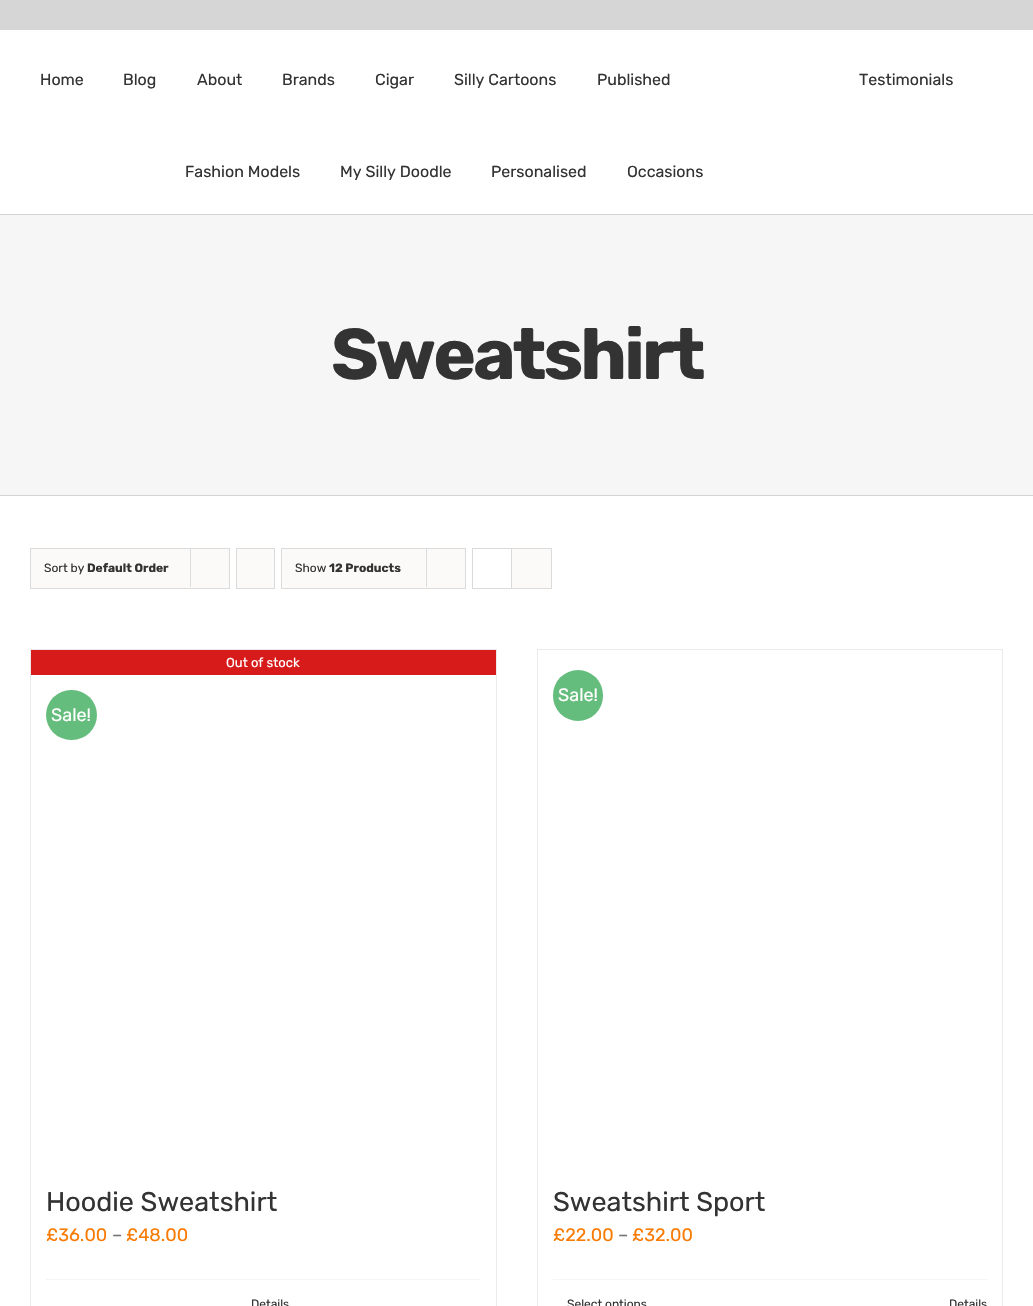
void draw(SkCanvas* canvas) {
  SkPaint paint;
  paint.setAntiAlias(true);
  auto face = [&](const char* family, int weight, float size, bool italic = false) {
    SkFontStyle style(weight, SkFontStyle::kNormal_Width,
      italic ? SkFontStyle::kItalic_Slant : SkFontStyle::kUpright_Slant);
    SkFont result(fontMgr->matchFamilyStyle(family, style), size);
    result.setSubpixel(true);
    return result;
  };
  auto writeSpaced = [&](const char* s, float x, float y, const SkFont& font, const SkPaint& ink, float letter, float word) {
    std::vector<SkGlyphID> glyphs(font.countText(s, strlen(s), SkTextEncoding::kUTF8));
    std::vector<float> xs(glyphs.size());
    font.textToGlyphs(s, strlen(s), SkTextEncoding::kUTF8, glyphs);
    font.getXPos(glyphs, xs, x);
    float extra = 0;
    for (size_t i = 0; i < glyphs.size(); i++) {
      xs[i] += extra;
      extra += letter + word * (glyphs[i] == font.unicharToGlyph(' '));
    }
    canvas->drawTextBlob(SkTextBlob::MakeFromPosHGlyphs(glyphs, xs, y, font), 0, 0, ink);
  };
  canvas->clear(0xffd7d6d6);
  {
    const struct { float x, y, w, h; SkColor color; } items[] = {
      {0, 30, 1033, 184, 0xffffffff},
      {0, 215, 1033, 280, 0xfff6f6f6},
      {0, 214, 1033, 1, 0xffd2d3d4},
      {0, 495, 1033, 1, 0xffd2d3d4},
      {0, 496, 1033, 810, 0xffffffff},
    };
    for (auto [x, y, w, h, color] : items) {
      paint.setColor(color);
      canvas->drawRect(SkRect::MakeXYWH(x, y, w, h), paint);
    }
  }
  paint.setColor(0xfffbfaf9);
  canvas->drawRect(SkRect::MakeXYWH(30.5f, 548.5f, 199, 40), paint);
  paint.setStroke(true);
  paint.setStrokeWidth(1);
  paint.setColor(0xffdbdbdb);
  canvas->drawRect(SkRect::MakeXYWH(30.5f, 548.5f, 199, 40), paint);
  paint.setStroke(false);
  canvas->drawRect(SkRect::MakeXYWH(190, 548, 1, 39), paint);
  paint.setColor(0xfffbfaf9);
  canvas->drawRect(SkRect::MakeXYWH(236.5f, 548.5f, 38, 40), paint);
  paint.setStroke(true);
  paint.setColor(0xffdbdbdb);
  canvas->drawRect(SkRect::MakeXYWH(236.5f, 548.5f, 38, 40), paint);
  paint.setStroke(false);
  paint.setColor(0xfffbfaf9);
  canvas->drawRect(SkRect::MakeXYWH(281.5f, 548.5f, 184, 40), paint);
  paint.setStroke(true);
  paint.setColor(0xffdbdbdb);
  canvas->drawRect(SkRect::MakeXYWH(281.5f, 548.5f, 184, 40), paint);
  paint.setStroke(false);
  canvas->drawRect(SkRect::MakeXYWH(426, 548, 1, 39), paint);
  paint.setStroke(true);
  canvas->drawRect(SkRect::MakeXYWH(472.5f, 548.5f, 79, 40), paint);
  paint.setStroke(false);
  {
    const struct { float x, y, w, h; SkColor color; } items[] = {
      {511, 549, 1, 39, 0xffdbdbdb},
      {512, 549, 39, 39, 0xfffbfaf9},
      {30, 649, 467, 1, 0xffebeaea},
      {496, 649, 1, 657, 0xffebeaea},
      {30, 649, 1, 657, 0xffebeaea},
      {31, 650, 465, 25, 0xffd71a1a},
    };
    for (auto [x, y, w, h, color] : items) {
      paint.setColor(color);
      canvas->drawRect(SkRect::MakeXYWH(x, y, w, h), paint);
    }
  }
  paint.setColor(0xff65bd7d);
  canvas->drawRoundRect(SkRect::MakeXYWH(46, 690, 51, 50), 25, 25, paint);
  {
    const struct { float x, y, w, h; SkColor color; } items[] = {
      {46, 1279, 435, 1, 0xfff6f4f5},
      {537, 649, 466, 1, 0xffebeaea},
      {1002, 649, 1, 657, 0xffebeaea},
      {537, 649, 1, 657, 0xffebeaea},
    };
    for (auto [x, y, w, h, color] : items) {
      paint.setColor(color);
      canvas->drawRect(SkRect::MakeXYWH(x, y, w, h), paint);
    }
  }
  paint.setColor(0xff65bd7d);
  canvas->drawRoundRect(SkRect::MakeXYWH(553, 670, 50, 51), 25, 25, paint);
  paint.setColor(0xfff6f4f5);
  canvas->drawRect(SkRect::MakeXYWH(553, 1279, 434, 1), paint);
  auto f0 = face("Rubik", 400, 16);
  paint.setColor(0xff333333);
  {
    const struct { const char* s; float x, y; } items[] = {
      {"Home", 40, 85},
      {"Blog", 123, 85},
      {"About", 197, 85},
      {"Brands", 282, 85},
      {"Cigar", 375, 85},
      {"Silly Cartoons", 454, 85},
      {"Published", 597, 85},
      {"Testimonials", 859, 85},
      {"Fashion Models", 185, 177},
      {"My Silly Doodle", 340, 177},
      {"Personalised", 491, 177},
      {"Occasions", 627, 177},
    };
    for (auto [s, x, y] : items) {
      canvas->drawString(s, x, y, f0, paint);
    }
  }
  auto f1 = face("Rubik", 700, 72);
  writeSpaced("Sweatshirt", 331, 379, f1, paint, -2.9f, 0);
  auto f2 = face("Rubik", 400, 12);
  canvas->drawString("Sort by", 44, 572, f2, paint);
  auto f3 = face("Rubik", 700, 12);
  canvas->drawString("Default Order", 87, 572, f3, paint);
  canvas->drawString("Show", 295, 572, f2, paint);
  canvas->drawString("12 Products", 329, 572, f3, paint);
  auto f4 = face("Rubik", 400, 13);
  paint.setColor(0xffffffff);
  canvas->drawString("Out of stock", 226, 667, f4, paint);
  auto f5 = face("Rubik", 400, 18);
  canvas->drawString("Sale!", 51, 721, f5, paint);
  auto f6 = face("Rubik", 400, 27);
  paint.setColor(0xff333333);
  canvas->drawString("Hoodie Sweatshirt", 46, 1211, f6, paint);
  paint.setColor(0xfff87b06);
  canvas->drawString("£36.00", 46, 1241, f5, paint);
  paint.setColor(0xff747474);
  canvas->drawString("–", 112, 1241, f5, paint);
  paint.setColor(0xfff87b06);
  canvas->drawString("£48.00", 126, 1241, f5, paint);
  paint.setColor(0xff333333);
  canvas->drawString("Details", 251, 1308, f2, paint);
  paint.setColor(0xffffffff);
  canvas->drawString("Sale!", 558, 701, f5, paint);
  paint.setColor(0xff333333);
  canvas->drawString("Sweatshirt Sport", 553, 1211, f6, paint);
  paint.setColor(0xfff87b06);
  canvas->drawString("£22.00", 553, 1241, f5, paint);
  paint.setColor(0xff747474);
  canvas->drawString("–", 618, 1241, f5, paint);
  paint.setColor(0xfff87b06);
  canvas->drawString("£32.00", 632, 1241, f5, paint);
  paint.setColor(0xff333333);
  canvas->drawString("Select options", 567, 1308, f2, paint);
  canvas->drawString("Details", 949, 1308, f2, paint);
}
